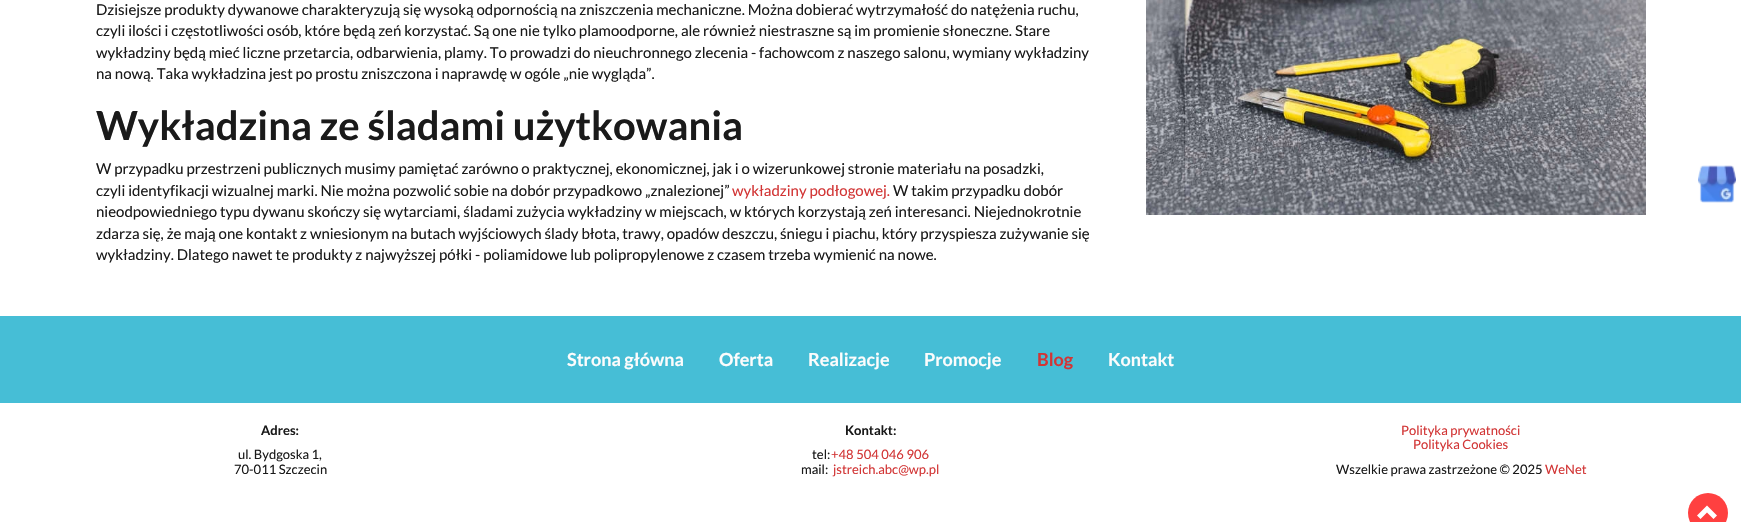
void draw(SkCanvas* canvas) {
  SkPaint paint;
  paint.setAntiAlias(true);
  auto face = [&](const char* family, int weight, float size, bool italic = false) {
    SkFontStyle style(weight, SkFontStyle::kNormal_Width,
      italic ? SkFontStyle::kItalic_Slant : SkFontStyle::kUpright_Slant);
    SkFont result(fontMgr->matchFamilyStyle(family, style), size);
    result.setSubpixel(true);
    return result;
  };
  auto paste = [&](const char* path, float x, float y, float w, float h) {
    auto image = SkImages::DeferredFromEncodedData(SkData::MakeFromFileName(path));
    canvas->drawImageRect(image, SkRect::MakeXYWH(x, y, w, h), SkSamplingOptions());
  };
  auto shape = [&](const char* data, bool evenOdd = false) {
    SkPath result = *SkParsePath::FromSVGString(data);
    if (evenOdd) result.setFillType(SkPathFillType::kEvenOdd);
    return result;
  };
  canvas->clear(0xffffffff);
  paste("img/1.png", 1146, 0, 500, 215);
  paste("img/2.png", 1698, 165, 38, 38);
  paint.setColor(0xff46bed6);
  canvas->drawRect(SkRect::MakeXYWH(0, 316, 1741, 87), paint);
  paint.setColor(0xffff4040);
  canvas->drawCircle(1708, 513, 20, paint);
  paint.setColor(0xffffffff);
  canvas->drawPath(shape("M1717 515.5L1713.5 519L1707 512.5L1700.5 519L1697 515.5L1707 505.5Z"), paint);
  auto f0 = face("Lato", 400, 15);
  paint.setColor(0xff1a1a1a);
  {
    const struct { const char* s; float x, y; } items[] = {
      {"Dzisiejsze produkty dywanowe charakteryzują się wysoką odpornością na zniszczenia mechaniczne. Można dobierać wytrzymałość do natężenia ruchu,", 96, 15},
      {"czyli ilości i częstotliwości osób, które będą zeń korzystać. Są one nie tylko plamoodporne, ale również niestraszne są im promienie słoneczne. Stare", 96, 36},
      {"wykładziny będą mieć liczne przetarcia, odbarwienia, plamy. To prowadzi do nieuchronnego zlecenia - fachowcom z naszego salonu, wymiany wykładziny", 96, 58},
      {"na nową. Taka wykładzina jest po prostu zniszczona i naprawdę w ogóle „nie wygląda”.", 96, 79},
    };
    for (auto [s, x, y] : items) {
      canvas->drawString(s, x, y, f0, paint);
    }
  }
  auto f1 = face("Lato", 700, 40);
  canvas->drawString("Wykładzina ze śladami użytkowania", 96, 140, f1, paint);
  canvas->drawString("W przypadku przestrzeni publicznych musimy pamiętać zarówno o praktycznej, ekonomicznej, jak i o wizerunkowej stronie materiału na posadzki,", 96, 174, f0, paint);
  canvas->drawString("czyli identyfikacji wizualnej marki. Nie można pozwolić sobie na dobór przypadkowo „znalezionej”", 96, 196, f0, paint);
  paint.setColor(0xffd23535);
  canvas->drawString("wykładziny podłogowej.", 732, 196, f0, paint);
  paint.setColor(0xff1a1a1a);
  {
    const struct { const char* s; float x, y; } items[] = {
      {"W takim przypadku dobór", 893, 196},
      {"nieodpowiedniego typu dywanu skończy się wytarciami, śladami zużycia wykładziny w miejscach, w których korzystają zeń interesanci. Niejednokrotnie", 96, 217},
      {"zdarza się, że mają one kontakt z wniesionym na butach wyjściowych ślady błota, trawy, opadów deszczu, śniegu i piachu, który przyspiesza zużywanie się", 96, 239},
      {"wykładziny. Dlatego nawet te produkty z najwyższej półki - poliamidowe lub polipropylenowe z czasem trzeba wymienić na nowe.", 96, 260},
    };
    for (auto [s, x, y] : items) {
      canvas->drawString(s, x, y, f0, paint);
    }
  }
  auto f2 = face("Lato", 700, 18);
  paint.setColor(0xfffcfcfc);
  {
    const struct { const char* s; float x, y; } items[] = {
      {"Strona główna", 567, 366},
      {"Oferta", 719, 366},
      {"Realizacje", 808, 366},
      {"Promocje", 924, 366},
    };
    for (auto [s, x, y] : items) {
      canvas->drawString(s, x, y, f2, paint);
    }
  }
  paint.setColor(0xffd23535);
  canvas->drawString("Blog", 1037, 366, f2, paint);
  paint.setColor(0xfffcfcfc);
  canvas->drawString("Kontakt", 1108, 366, f2, paint);
  auto f3 = face("Lato", 700, 13);
  paint.setColor(0xff1a1a1a);
  canvas->drawString("Adres:", 261, 435, f3, paint);
  auto f4 = face("Lato", 400, 13);
  canvas->drawString("ul. Bydgoska 1,", 238, 459, f4, paint);
  canvas->drawString("70-011 Szczecin", 234, 474, f4, paint);
  canvas->drawString("Kontakt:", 845, 435, f3, paint);
  canvas->drawString("tel:", 812, 459, f4, paint);
  paint.setColor(0xffd23535);
  canvas->drawString("+48 504 046 906", 831, 459, f4, paint);
  paint.setColor(0xff1a1a1a);
  canvas->drawString("mail:", 801, 474, f4, paint);
  paint.setColor(0xffd23535);
  {
    const struct { const char* s; float x, y; } items[] = {
      {"jstreich.abc@wp.pl", 833, 474},
      {"Polityka prywatności", 1401, 435},
      {"Polityka Cookies", 1413, 449},
    };
    for (auto [s, x, y] : items) {
      canvas->drawString(s, x, y, f4, paint);
    }
  }
  paint.setColor(0xff1a1a1a);
  canvas->drawString("Wszelkie prawa zastrzeżone © 2025", 1336, 474, f4, paint);
  paint.setColor(0xffd23535);
  canvas->drawString("WeNet", 1545, 474, f4, paint);
}
